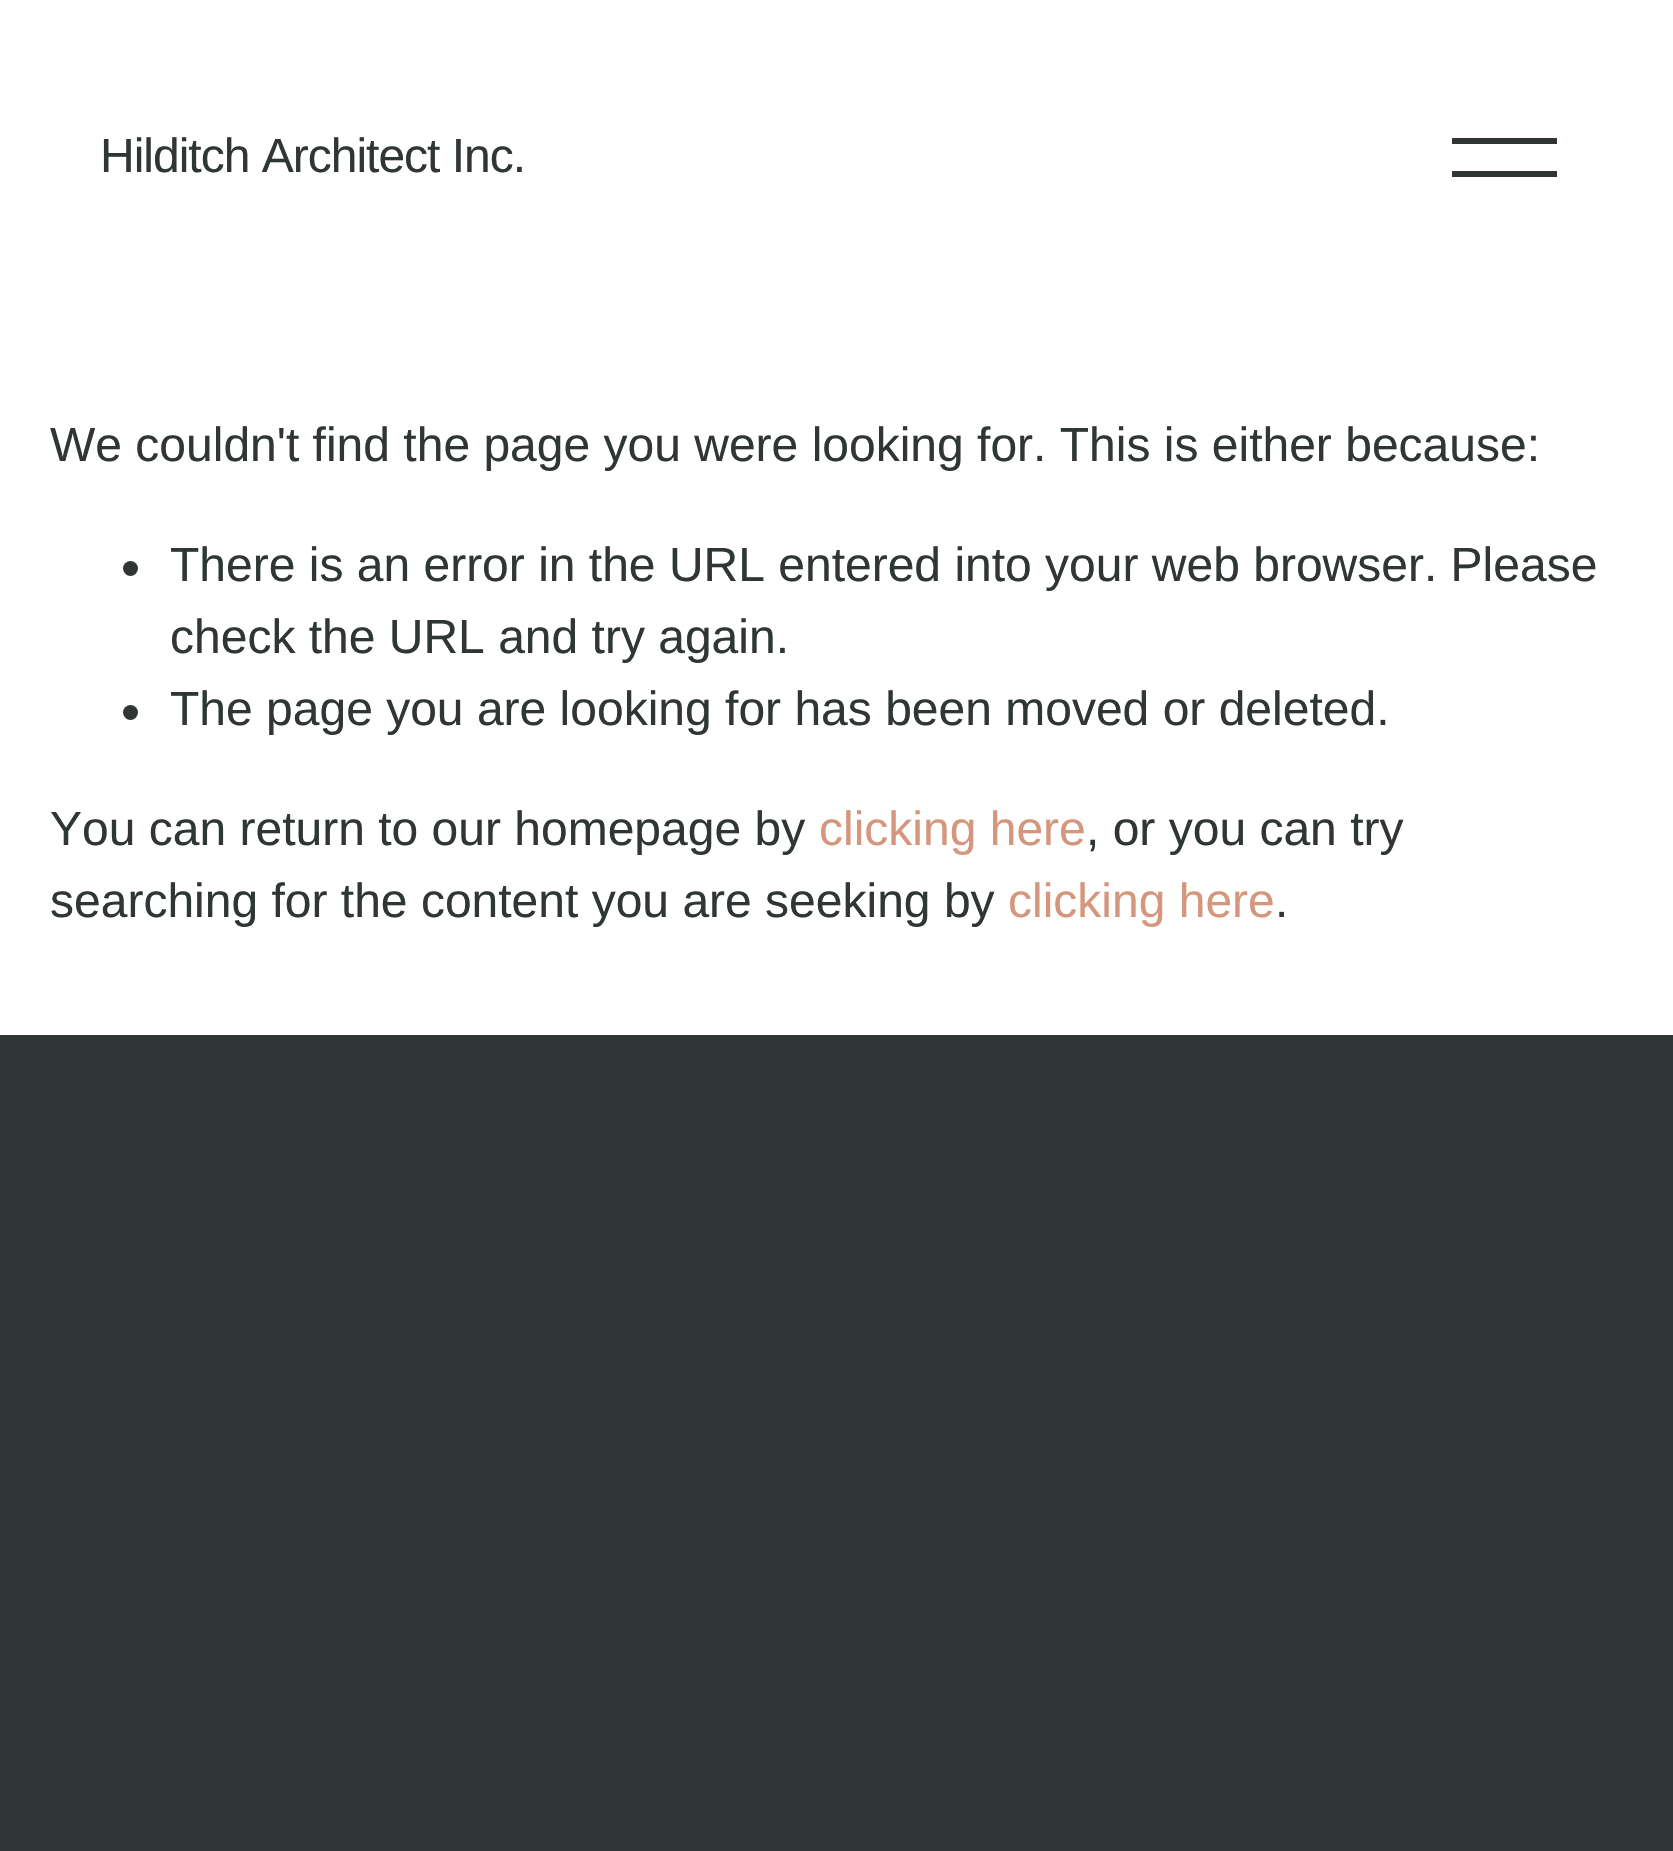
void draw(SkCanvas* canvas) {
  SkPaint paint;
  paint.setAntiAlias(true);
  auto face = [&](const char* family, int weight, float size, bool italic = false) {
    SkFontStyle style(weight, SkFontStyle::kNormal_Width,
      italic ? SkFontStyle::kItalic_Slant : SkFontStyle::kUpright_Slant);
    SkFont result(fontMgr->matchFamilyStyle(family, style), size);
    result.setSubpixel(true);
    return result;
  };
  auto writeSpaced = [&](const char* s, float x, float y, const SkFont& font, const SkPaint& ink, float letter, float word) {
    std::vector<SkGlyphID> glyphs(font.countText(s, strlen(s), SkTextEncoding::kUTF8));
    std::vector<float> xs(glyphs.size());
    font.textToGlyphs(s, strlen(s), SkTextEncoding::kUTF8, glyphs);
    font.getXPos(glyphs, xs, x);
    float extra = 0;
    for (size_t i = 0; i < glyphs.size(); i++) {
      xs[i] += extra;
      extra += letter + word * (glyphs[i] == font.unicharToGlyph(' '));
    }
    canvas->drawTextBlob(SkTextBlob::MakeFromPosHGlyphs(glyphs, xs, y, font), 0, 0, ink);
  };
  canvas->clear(0xffffffff);
  paint.setColor(0xff303636);
  canvas->drawRect(SkRect::MakeXYWH(1452, 138, 105, 6), paint);
  canvas->drawRect(SkRect::MakeXYWH(1452, 171, 105, 6), paint);
  canvas->drawCircle(130.5f, 568.5f, 7.5f, paint);
  canvas->drawCircle(130.5f, 712.5f, 7.5f, paint);
  canvas->drawRect(SkRect::MakeXYWH(0, 1035, 1673, 816), paint);
  auto f0 = face("Liberation Sans", 400, 48);
  writeSpaced("Hilditch Architect Inc.", 100, 172, f0, paint, -1, 0);
  {
    const struct { const char* s; float x, y; } items[] = {
      {"We couldn't find the page you were looking for. This is either because:", 50, 461},
      {"There is an error in the URL entered into your web browser. Please", 170, 581},
      {"check the URL and try again.", 170, 653},
      {"The page you are looking for has been moved or deleted.", 170, 725},
      {"You can return to our homepage by", 50, 845},
    };
    for (auto [s, x, y] : items) {
      canvas->drawString(s, x, y, f0, paint);
    }
  }
  paint.setColor(0xffd4967d);
  canvas->drawString("clicking here", 819, 845, f0, paint);
  paint.setColor(0xff303636);
  canvas->drawString(", or you can try", 1086, 845, f0, paint);
  canvas->drawString("searching for the content you are seeking by", 50, 917, f0, paint);
  paint.setColor(0xffd4967d);
  canvas->drawString("clicking here", 1008, 917, f0, paint);
  paint.setColor(0xff303636);
  canvas->drawString(".", 1275, 917, f0, paint);
}
